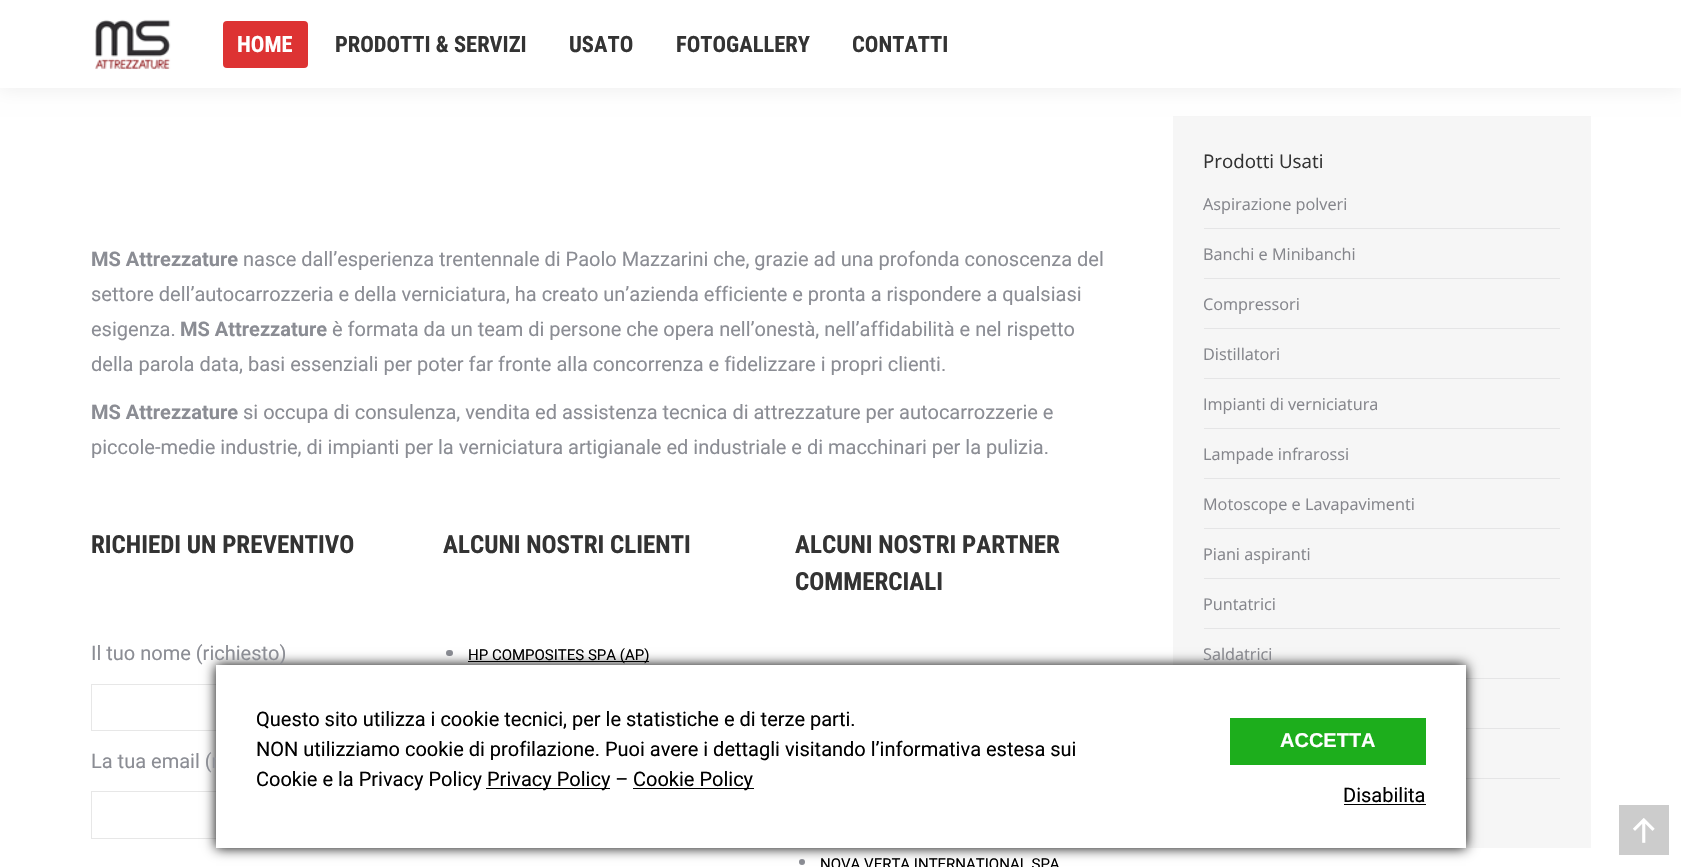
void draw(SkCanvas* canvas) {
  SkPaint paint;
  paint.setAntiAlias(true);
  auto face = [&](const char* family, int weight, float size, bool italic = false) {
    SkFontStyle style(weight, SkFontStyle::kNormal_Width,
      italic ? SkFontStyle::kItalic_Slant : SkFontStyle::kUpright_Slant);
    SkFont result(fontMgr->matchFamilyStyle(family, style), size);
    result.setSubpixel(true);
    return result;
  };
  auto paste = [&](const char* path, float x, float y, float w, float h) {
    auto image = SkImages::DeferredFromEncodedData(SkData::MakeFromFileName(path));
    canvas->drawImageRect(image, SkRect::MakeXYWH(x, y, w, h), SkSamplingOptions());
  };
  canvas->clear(0xffffffff);
  paint.setColor(0xfff6f6f6);
  canvas->drawRect(SkRect::MakeXYWH(1173, 116, 418, 732), paint);
  paint.setColor(0x12000000);
  paint.setMaskFilter(SkMaskFilter::MakeBlur(kNormal_SkBlurStyle, 9.5f));
  canvas->drawRect(SkRect::MakeXYWH(-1, -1, 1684, 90), paint);
  paint.setMaskFilter(nullptr);
  paint.setColor(0xffffffff);
  canvas->drawRect(SkRect::MakeXYWH(0, 0, 1681, 88), paint);
  paste("img/1.png", 95, 19, 76, 51);
  paint.setColor(0xffdd3333);
  canvas->drawRoundRect(SkRect::MakeXYWH(223, 21, 85, 47), 4, 4, paint);
  paint.setStroke(true);
  paint.setStrokeWidth(1);
  paint.setColor(0xffe7e7e7);
  canvas->drawRect(SkRect::MakeXYWH(91.5f, 684.5f, 313, 46), paint);
  canvas->drawRect(SkRect::MakeXYWH(91.5f, 791.5f, 313, 47), paint);
  paint.setStroke(false);
  paint.setColor(0xff8b8d94);
  canvas->drawRoundRect(SkRect::MakeXYWH(446, 650, 7, 6), 3, 3, paint);
  paint.setColor(0xff000000);
  canvas->drawRect(SkRect::MakeXYWH(468, 661, 181, 1), paint);
  paint.setColor(0xff8b8d94);
  canvas->drawCircle(802, 862, 3, paint);
  {
    const struct { float x, y, w, h; SkColor color; } items[] = {
      {1204, 228, 356, 1, 0xffe5e5e6},
      {1204, 278, 356, 1, 0xffe5e5e6},
      {1204, 328, 356, 1, 0xffe5e5e6},
      {1204, 378, 356, 1, 0xffe5e5e6},
      {1204, 428, 356, 1, 0xffe5e5e6},
      {1204, 478, 356, 1, 0xffe5e5e6},
      {1204, 528, 356, 1, 0xffe5e5e6},
      {1204, 578, 356, 1, 0xffe5e5e6},
      {1204, 628, 356, 1, 0xffe5e5e6},
      {1466, 678, 94, 1, 0xffe5e5e6},
      {1466, 728, 94, 1, 0xffe5e5e6},
      {1466, 778, 94, 1, 0xffe5e5e6},
      {1619, 805, 50, 50, 0xffcccccc},
    };
    for (auto [x, y, w, h, color] : items) {
      paint.setColor(color);
      canvas->drawRect(SkRect::MakeXYWH(x, y, w, h), paint);
    }
  }
  paste("img/2.png", 1633, 818, 22, 25);
  paint.setColor(0xff000000);
  paint.setMaskFilter(SkMaskFilter::MakeBlur(kNormal_SkBlurStyle, 6));
  canvas->drawRect(SkRect::MakeXYWH(216, 665, 1250, 183), paint);
  paint.setMaskFilter(nullptr);
  auto f0 = face("Roboto Condensed", 700, 22.5f);
  paint.setColor(0xffffffff);
  canvas->drawString("HOME", 237, 52, f0, paint);
  paint.setColor(0xff333333);
  {
    const struct { const char* s; float x, y; } items[] = {
      {"PRODOTTI & SERVIZI", 335, 52},
      {"USATO", 569, 52},
      {"FOTOGALLERY", 676, 52},
      {"CONTATTI", 852, 52},
    };
    for (auto [s, x, y] : items) {
      canvas->drawString(s, x, y, f0, paint);
    }
  }
  auto f1 = face("Roboto", 700, 20);
  paint.setColor(0xff8b8d94);
  canvas->drawString("MS Attrezzature", 91, 266, f1, paint);
  auto f2 = face("Roboto", 400, 20);
  {
    const struct { const char* s; float x, y; } items[] = {
      {"nasce dall’esperienza trentennale di Paolo Mazzarini che, grazie ad una profonda conoscenza del", 243, 266},
      {"settore dell’autocarrozzeria e della verniciatura, ha creato un’azienda efficiente e pronta a rispondere a qualsiasi", 91, 301},
      {"esigenza.", 91, 336},
    };
    for (auto [s, x, y] : items) {
      canvas->drawString(s, x, y, f2, paint);
    }
  }
  canvas->drawString("MS Attrezzature", 180, 336, f1, paint);
  canvas->drawString("è formata da un team di persone che opera nell’onestà, nell’affidabilità e nel rispetto", 332, 336, f2, paint);
  canvas->drawString("della parola data, basi essenziali per poter far fronte alla concorrenza e fidelizzare i propri clienti.", 91, 371, f2, paint);
  canvas->drawString("MS Attrezzature", 91, 419, f1, paint);
  canvas->drawString("si occupa di consulenza, vendita ed assistenza tecnica di attrezzature per autocarrozzerie e", 243, 419, f2, paint);
  canvas->drawString("piccole-medie industrie, di impianti per la verniciatura artigianale ed industriale e di macchinari per la pulizia.", 91, 454, f2, paint);
  auto f3 = face("Roboto Condensed", 700, 25);
  paint.setColor(0xff333333);
  canvas->drawString("RICHIEDI UN PREVENTIVO", 91, 553, f3, paint);
  paint.setColor(0xff8b8d94);
  canvas->drawString("Il tuo nome (richiesto)", 91, 660, f2, paint);
  canvas->drawString("La tua email (r", 91, 768, f2, paint);
  paint.setColor(0xff333333);
  canvas->drawString("ALCUNI NOSTRI CLIENTI", 443, 553, f3, paint);
  auto f4 = face("Roboto", 400, 15);
  paint.setColor(0xff000000);
  canvas->drawString("HP COMPOSITES SPA (AP)", 468, 660, f4, paint);
  paint.setColor(0xff333333);
  canvas->drawString("ALCUNI NOSTRI PARTNER", 795, 553, f3, paint);
  canvas->drawString("COMMERCIALI", 795, 590, f3, paint);
  paint.setColor(0xff000000);
  canvas->drawString("NOVA VERTA INTERNATIONAL SPA", 820, 869, f4, paint);
  auto f5 = face("Open Sans", 400, 18.75f);
  paint.setColor(0xff333333);
  canvas->drawString("Prodotti Usati", 1203, 168, f5, paint);
  auto f6 = face("Open Sans", 400, 16.25f);
  paint.setColor(0xff85868c);
  {
    const struct { const char* s; float x, y; } items[] = {
      {"Aspirazione polveri", 1203, 210},
      {"Banchi e Minibanchi", 1203, 260},
      {"Compressori", 1203, 310},
      {"Distillatori", 1203, 360},
      {"Impianti di verniciatura", 1203, 410},
      {"Lampade infrarossi", 1203, 460},
      {"Motoscope e Lavapavimenti", 1203, 510},
      {"Piani aspiranti", 1203, 560},
      {"Puntatrici", 1203, 610},
      {"Saldatrici", 1203, 660},
    };
    for (auto [s, x, y] : items) {
      canvas->drawString(s, x, y, f6, paint);
    }
  }
  paint.setColor(0xffffffff);
  canvas->drawRect(SkRect::MakeXYWH(216, 665, 1250, 183), paint);
  paint.setColor(0xff000000);
  {
    const struct { const char* s; float x, y; } items[] = {
      {"Questo sito utilizza i cookie tecnici, per le statistiche e di terze parti.", 256, 726},
      {"NON utilizziamo cookie di profilazione. Puoi avere i dettagli visitando l’informativa estesa sui", 256, 756},
      {"Cookie e la Privacy Policy", 256, 786},
    };
    for (auto [s, x, y] : items) {
      canvas->drawString(s, x, y, f2, paint);
    }
  }
  canvas->drawRect(SkRect::MakeXYWH(486, 788, 124, 1), paint);
  canvas->drawString("Privacy Policy –", 487, 786, f2, paint);
  canvas->drawRect(SkRect::MakeXYWH(633, 788, 121, 1), paint);
  canvas->drawString("Cookie Policy", 633, 786, f2, paint);
  paint.setColor(0xff1dae1c);
  canvas->drawRect(SkRect::MakeXYWH(1230, 718, 196, 47), paint);
  auto f7 = face("Liberation Sans", 700, 20);
  paint.setColor(0xffffffff);
  canvas->drawString("ACCETTA", 1280, 747, f7, paint);
  paint.setColor(0xff000000);
  canvas->drawString("Disabilita", 1343, 802, f2, paint);
  canvas->drawRect(SkRect::MakeXYWH(1344, 804, 82, 1), paint);
}
